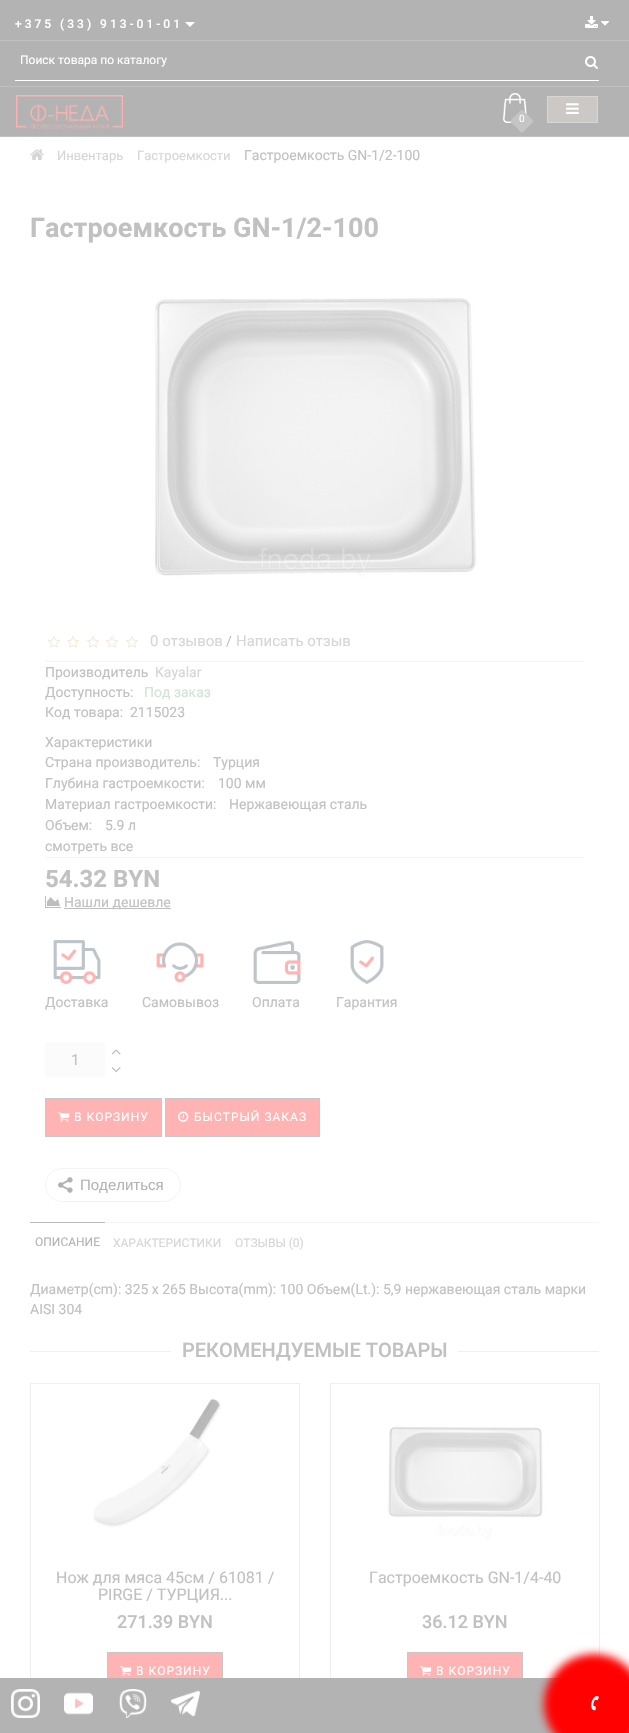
void draw(SkCanvas* canvas) {
  SkPaint paint;
  paint.setAntiAlias(true);
  auto face = [&](const char* family, int weight, float size, bool italic = false) {
    SkFontStyle style(weight, SkFontStyle::kNormal_Width,
      italic ? SkFontStyle::kItalic_Slant : SkFontStyle::kUpright_Slant);
    SkFont result(fontMgr->matchFamilyStyle(family, style), size);
    result.setSubpixel(true);
    return result;
  };
  auto writeSpaced = [&](const char* s, float x, float y, const SkFont& font, const SkPaint& ink, float letter, float word) {
    std::vector<SkGlyphID> glyphs(font.countText(s, strlen(s), SkTextEncoding::kUTF8));
    std::vector<float> xs(glyphs.size());
    font.textToGlyphs(s, strlen(s), SkTextEncoding::kUTF8, glyphs);
    font.getXPos(glyphs, xs, x);
    float extra = 0;
    for (size_t i = 0; i < glyphs.size(); i++) {
      xs[i] += extra;
      extra += letter + word * (glyphs[i] == font.unicharToGlyph(' '));
    }
    canvas->drawTextBlob(SkTextBlob::MakeFromPosHGlyphs(glyphs, xs, y, font), 0, 0, ink);
  };
  auto paste = [&](const char* path, float x, float y, float w, float h) {
    auto image = SkImages::DeferredFromEncodedData(SkData::MakeFromFileName(path));
    canvas->drawImageRect(image, SkRect::MakeXYWH(x, y, w, h), SkSamplingOptions());
  };
  auto shape = [&](const char* data, bool evenOdd = false) {
    SkPath result = *SkParsePath::FromSVGString(data);
    if (evenOdd) result.setFillType(SkPathFillType::kEvenOdd);
    return result;
  };
  canvas->clear(0xffffffff);
  paint.setColor(0xffb3b3b3);
  canvas->drawRect(SkRect::MakeXYWH(0, 0, 629, 40), paint);
  paint.setColor(0xffc0c0c0);
  canvas->drawRect(SkRect::MakeXYWH(0, 40, 629, 1), paint);
  paint.setColor(0xffffffff);
  canvas->drawPath(shape("M185 22H195L190 27Z"), paint);
  paste("img/1.png", 585, 16, 13, 12);
  paste("img/2.png", 601, 21, 8, 5);
  paint.setColor(0xffb3b3b3);
  canvas->drawRect(SkRect::MakeXYWH(0, 41, 629, 45), paint);
  paint.setColor(0xffffffff);
  canvas->drawRect(SkRect::MakeXYWH(15, 80, 584, 1), paint);
  paste("img/3.png", 585, 56, 13, 13);
  {
    const struct { float x, y, w, h; SkColor color; } items[] = {
      {0, 87, 629, 49, 0xffb3b3b3},
      {0, 86, 629, 1, 0xffc0c0c0},
      {0, 136, 629, 1, 0xffc0c0c0},
    };
    for (auto [x, y, w, h, color] : items) {
      paint.setColor(color);
      canvas->drawRect(SkRect::MakeXYWH(x, y, w, h), paint);
    }
  }
  paste("img/4.png", 16, 95, 107, 35);
  paste("img/5.png", 502, 93, 25, 30);
  paint.setColor(0xffc5c5c5);
  canvas->drawPath(shape("M522.5 110C524 111.5 533.5 120 533.5 121.5L528 127C520.5 134.5 523.5 134.5 516 127C509.5 120.5 508.5 122.5 514 117L517.5 113.5C518.5 112.5 521.5 108.5 522.5 110Z"), paint);
  paint.setColor(0xffcbc8c5);
  canvas->drawRect(SkRect::MakeXYWH(547.5f, 96.5f, 50, 26), paint);
  paint.setStroke(true);
  paint.setStrokeWidth(1);
  paint.setColor(0xffd6d6d6);
  canvas->drawRect(SkRect::MakeXYWH(547.5f, 96.5f, 50, 26), paint);
  paste("img/6.png", 566, 103, 13, 11);
  paste("img/7.png", 30, 149, 14, 11);
  paste("img/8.png", 154, 297, 323, 280);
  paint.setStroke(false);
  paint.setColor(0xfff5f5f5);
  canvas->drawRect(SkRect::MakeXYWH(45, 661, 539, 1), paint);
  paste("img/9.png", 48, 636, 12, 12);
  paste("img/9.png", 67, 636, 12, 12);
  paste("img/9.png", 87, 636, 12, 12);
  paste("img/9.png", 106, 636, 12, 12);
  paste("img/9.png", 126, 636, 12, 12);
  canvas->drawRect(SkRect::MakeXYWH(45, 857, 539, 1), paint);
  paste("img/10.png", 45, 896, 16, 12);
  paint.setColor(0xffbebebe);
  canvas->drawRect(SkRect::MakeXYWH(64, 908, 107, 1), paint);
  paste("img/11.png", 53, 940, 48, 44);
  paste("img/12.png", 156, 942, 48, 41);
  paste("img/13.png", 253, 940, 48, 44);
  paste("img/14.png", 350, 940, 34, 44);
  paint.setColor(0xfffbfbfb);
  canvas->drawRect(SkRect::MakeXYWH(45, 1042, 60, 35), paint);
  paste("img/15.png", 111, 1049, 10, 6);
  paste("img/16.png", 111, 1067, 10, 6);
  paint.setColor(0xffffb3b3);
  canvas->drawRect(SkRect::MakeXYWH(45.5f, 1098.5f, 116, 38), paint);
  paint.setStroke(true);
  paint.setColor(0xffc7c7c7);
  canvas->drawRect(SkRect::MakeXYWH(45.5f, 1098.5f, 116, 38), paint);
  paste("img/17.png", 58, 1112, 12, 10);
  paint.setStroke(false);
  paint.setColor(0xffffb3b3);
  canvas->drawRect(SkRect::MakeXYWH(165.5f, 1098.5f, 154, 38), paint);
  paint.setStroke(true);
  paint.setColor(0xffc7c7c7);
  canvas->drawRect(SkRect::MakeXYWH(165.5f, 1098.5f, 154, 38), paint);
  paste("img/18.png", 178, 1111, 11, 11);
  paint.setColor(0x26b3b3b3);
  canvas->drawRoundRect(SkRect::MakeXYWH(45.5f, 1168.5f, 135, 33), 16.5f, 16.5f, paint);
  paste("img/19.png", 58, 1177, 15, 16);
  paint.setStroke(false);
  {
    const struct { float x, y, w, h; SkColor color; } items[] = {
      {105, 1222, 494, 1, 0xfff5f5f5},
      {30, 1222, 75, 1, 0xffbbbbbb},
      {30, 1351, 141, 1, 0xffefefef},
      {458, 1351, 141, 1, 0xffefefef},
    };
    for (auto [x, y, w, h, color] : items) {
      paint.setColor(color);
      canvas->drawRect(SkRect::MakeXYWH(x, y, w, h), paint);
    }
  }
  paint.setStroke(true);
  canvas->drawRect(SkRect::MakeXYWH(30.5f, 1383.5f, 269, 349), paint);
  paste("img/20.png", 92, 1395, 132, 133);
  paint.setStroke(false);
  paint.setColor(0xffffb3b3);
  canvas->drawRect(SkRect::MakeXYWH(108, 1653, 114, 25), paint);
  paint.setStroke(true);
  paint.setColor(0xffc7c7c7);
  canvas->drawRect(SkRect::MakeXYWH(107.5f, 1652.5f, 115, 38), paint);
  paste("img/17.png", 120, 1666, 12, 10);
  paint.setColor(0xffefefef);
  canvas->drawRect(SkRect::MakeXYWH(330.5f, 1383.5f, 269, 349), paint);
  paste("img/21.png", 387, 1424, 161, 118);
  paint.setStroke(false);
  paint.setColor(0xffffb3b3);
  canvas->drawRect(SkRect::MakeXYWH(408, 1653, 114, 25), paint);
  paint.setStroke(true);
  paint.setColor(0xffc7c7c7);
  canvas->drawRect(SkRect::MakeXYWH(407.5f, 1652.5f, 115, 38), paint);
  paste("img/17.png", 420, 1666, 12, 10);
  paint.setStroke(false);
  paint.setColor(0xffb3b3b3);
  canvas->drawRect(SkRect::MakeXYWH(0, 1678, 629, 55), paint);
  paint.setColor(0xffff0100);
  paint.setMaskFilter(SkMaskFilter::MakeBlur(kNormal_SkBlurStyle, 4));
  canvas->drawRoundRect(SkRect::MakeXYWH(544, 1654, 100, 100), 50, 50, paint);
  paint.setMaskFilter(nullptr);
  paste("img/22.png", 591, 1696, 8, 15);
  paste("img/23.png", 11, 1689, 29, 29);
  paste("img/24.png", 64, 1692, 29, 23);
  paste("img/25.png", 119, 1689, 28, 29);
  paste("img/26.png", 171, 1690, 29, 27);
  auto f0 = face("Roboto", 500, 12);
  paint.setColor(0xffffffff);
  writeSpaced("+375 (33) 913-01-01", 15, 28, f0, paint, 3, 0);
  auto f1 = face("Roboto", 400, 12);
  canvas->drawString("Поиск товара по каталогу", 20, 64, f1, paint);
  auto f2 = face("Roboto", 400, 10);
  canvas->drawString("0", 519, 122, f2, paint);
  auto f3 = face("Roboto", 400, 13);
  paint.setColor(0xffd6d6d6);
  canvas->drawString("Инвентарь", 57, 160, f3, paint);
  canvas->drawString("Гастроемкости", 137, 160, f3, paint);
  auto f4 = face("Roboto", 400, 14);
  paint.setColor(0xffc1c1c1);
  canvas->drawString("Гастроемкость GN-1/2-100", 244, 160, f4, paint);
  auto f5 = face("Roboto", 700, 27);
  canvas->drawString("Гастроемкость GN-1/2-100", 30, 237, f5, paint);
  auto f6 = face("Roboto", 400, 15);
  paint.setColor(0xffd6d6d6);
  canvas->drawString("0 отзывов", 150, 646, f6, paint);
  paint.setColor(0xffc1c1c1);
  canvas->drawString("/", 226, 646, f4, paint);
  paint.setColor(0xffd6d6d6);
  canvas->drawString("Написать отзыв", 236, 646, f6, paint);
  paint.setColor(0xffc1c1c1);
  canvas->drawString("Производитель", 45, 677, f4, paint);
  paint.setColor(0xffd6d6d6);
  canvas->drawString("Kayalar", 155, 677, f4, paint);
  paint.setColor(0xffc1c1c1);
  canvas->drawString("Доступность:", 45, 697, f4, paint);
  paint.setColor(0xffd5e3d7);
  canvas->drawString("Под заказ", 144, 697, f4, paint);
  paint.setColor(0xffc1c1c1);
  {
    const struct { const char* s; float x, y; } items[] = {
      {"Код товара:", 45, 717},
      {"2115023", 130, 717},
      {"Характеристики", 45, 747},
      {"Страна производитель:", 45, 767},
      {"Турция", 213, 767},
      {"Глубина гастроемкости:", 45, 788},
      {"100 мм", 218, 788},
      {"Материал гастроемкости:", 45, 809},
      {"Нержавеющая сталь", 229, 809},
      {"Объем:", 45, 830},
      {"5.9 л", 105, 830},
      {"смотреть все", 45, 851},
    };
    for (auto [s, x, y] : items) {
      canvas->drawString(s, x, y, f4, paint);
    }
  }
  auto f7 = face("Roboto", 700, 24);
  canvas->drawString("54.32 BYN", 45, 887, f7, paint);
  {
    const struct { const char* s; float x, y; } items[] = {
      {"Нашли дешевле", 64, 907},
      {"Доставка", 45, 1007},
      {"Самовывоз", 142, 1007},
      {"Оплата", 252, 1007},
      {"Гарантия", 336, 1007},
    };
    for (auto [s, x, y] : items) {
      canvas->drawString(s, x, y, f4, paint);
    }
  }
  canvas->drawString("1", 71, 1065, f6, paint);
  paint.setColor(0xffffffff);
  writeSpaced("В КОРЗИНУ", 74, 1121, f1, paint, 1, 0);
  writeSpaced("БЫСТРЫЙ ЗАКАЗ", 194, 1121, f1, paint, 1, 0);
  auto f8 = face("Liberation Sans", 400, 15);
  paint.setColor(0xffb3b3b3);
  canvas->drawString("Поделиться", 80, 1190, f8, paint);
  canvas->drawString("ОПИСАНИЕ", 35, 1246, f1, paint);
  paint.setColor(0xffd6d6d6);
  canvas->drawString("ХАРАКТЕРИСТИКИ", 113, 1247, f1, paint);
  canvas->drawString("ОТЗЫВЫ (0)", 235, 1247, f1, paint);
  paint.setColor(0xffc1c1c1);
  canvas->drawString("Диаметр(cm): 325 x 265 Высота(mm): 100 Объем(Lt.): 5,9 нержавеющая сталь марки", 30, 1294, f4, paint);
  canvas->drawString("AISI 304", 30, 1314, f4, paint);
  auto f9 = face("Roboto", 500, 20);
  canvas->drawString("РЕКОМЕНДУЕМЫЕ ТОВАРЫ", 182, 1357, f9, paint);
  auto f10 = face("Roboto", 400, 16);
  canvas->drawString("Нож для мяса 45см / 61081 /", 56, 1583, f10, paint);
  canvas->drawString("PIRGE / ТУРЦИЯ...", 98, 1600, f10, paint);
  auto f11 = face("Roboto", 500, 18);
  canvas->drawString("271.39 BYN", 117, 1628, f11, paint);
  paint.setColor(0xffffffff);
  writeSpaced("В КОРЗИНУ", 136, 1675, f1, paint, 1, 0);
  paint.setColor(0xffc1c1c1);
  canvas->drawString("Гастроемкость GN-1/4-40", 369, 1583, f10, paint);
  canvas->drawString("36.12 BYN", 422, 1628, f11, paint);
  paint.setColor(0xffffffff);
  writeSpaced("В КОРЗИНУ", 436, 1675, f1, paint, 1, 0);
}
